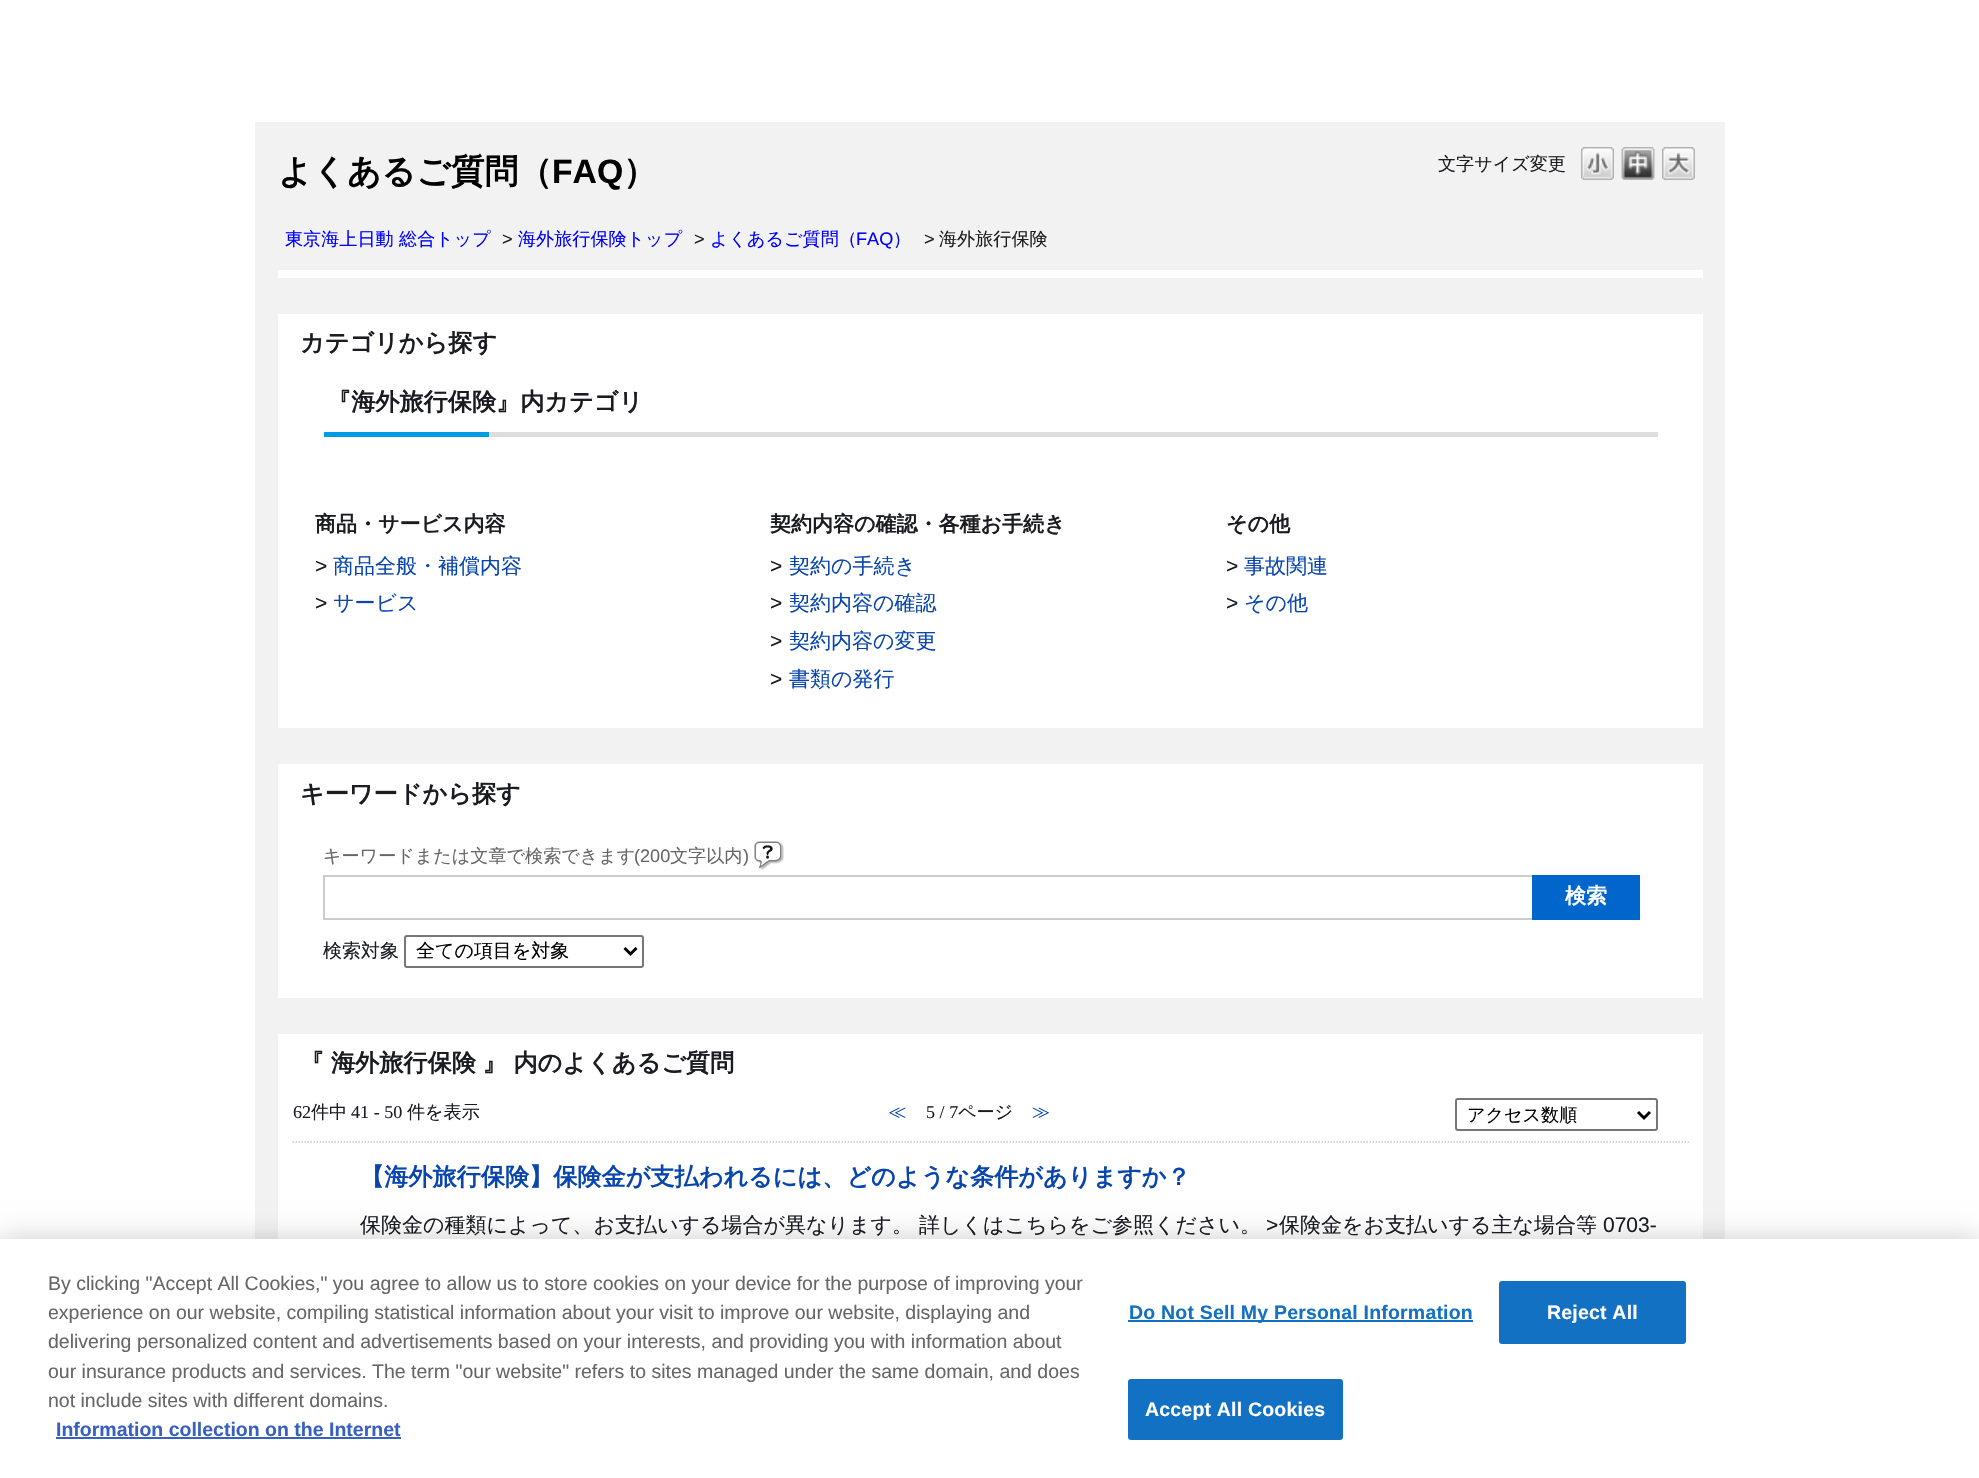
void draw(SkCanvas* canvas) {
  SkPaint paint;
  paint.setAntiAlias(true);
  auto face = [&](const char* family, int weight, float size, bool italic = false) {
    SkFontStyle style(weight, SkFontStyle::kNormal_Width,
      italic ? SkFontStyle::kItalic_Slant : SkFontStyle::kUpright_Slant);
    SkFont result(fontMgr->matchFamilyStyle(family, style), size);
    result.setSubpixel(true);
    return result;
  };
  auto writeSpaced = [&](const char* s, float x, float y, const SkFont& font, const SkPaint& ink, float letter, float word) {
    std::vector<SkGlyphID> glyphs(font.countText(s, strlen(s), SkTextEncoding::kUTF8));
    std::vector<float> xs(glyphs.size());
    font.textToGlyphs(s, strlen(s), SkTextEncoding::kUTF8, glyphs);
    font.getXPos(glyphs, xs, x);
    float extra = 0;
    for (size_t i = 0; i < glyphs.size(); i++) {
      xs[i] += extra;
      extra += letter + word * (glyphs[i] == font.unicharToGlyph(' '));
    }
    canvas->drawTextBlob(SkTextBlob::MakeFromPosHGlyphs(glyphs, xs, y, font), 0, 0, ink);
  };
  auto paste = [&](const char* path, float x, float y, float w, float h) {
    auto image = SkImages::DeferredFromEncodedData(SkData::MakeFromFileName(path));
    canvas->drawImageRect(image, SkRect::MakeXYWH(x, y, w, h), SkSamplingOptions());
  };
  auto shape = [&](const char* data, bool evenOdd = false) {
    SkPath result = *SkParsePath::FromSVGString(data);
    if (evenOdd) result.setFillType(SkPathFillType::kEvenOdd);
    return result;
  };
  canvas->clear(0xffffffff);
  paint.setColor(0xfff2f2f2);
  canvas->drawRect(SkRect::MakeXYWH(255, 122, 1470, 1117), paint);
  paste("img/1.png", 1581, 147, 33, 33);
  paste("img/2.png", 1621, 147, 34, 33);
  paste("img/3.png", 1662, 147, 33, 33);
  {
    const struct { float x, y, w, h; SkColor color; } items[] = {
      {278, 270, 1425, 8, 0xffffffff},
      {278, 314, 1425, 414, 0xffffffff},
      {489, 432, 1169, 5, 0xffdddddd},
      {324, 432, 165, 5, 0xff009ce5},
      {278, 764, 1425, 234, 0xffffffff},
    };
    for (auto [x, y, w, h, color] : items) {
      paint.setColor(color);
      canvas->drawRect(SkRect::MakeXYWH(x, y, w, h), paint);
    }
  }
  paste("img/4.png", 754, 841, 30, 29);
  {
    const struct { float x, y, w, h; SkColor color; } items[] = {
      {323, 875, 1209, 2, 0xffcccccc},
      {323, 918, 1209, 2, 0xffcccccc},
      {323, 875, 2, 45, 0xffcccccc},
      {1532, 875, 108, 45, 0xff0066cc},
    };
    for (auto [x, y, w, h, color] : items) {
      paint.setColor(color);
      canvas->drawRect(SkRect::MakeXYWH(x, y, w, h), paint);
    }
  }
  paint.setStroke(true);
  paint.setStrokeWidth(2);
  paint.setColor(0xff767676);
  canvas->drawRoundRect(SkRect::MakeXYWH(405, 936, 238, 31), 2, 2, paint);
  paint.setStrokeWidth(3);
  paint.setColor(0xff000000);
  canvas->drawPath(shape("M624.5 948L630.5 954L636.5 948"), paint);
  paint.setStroke(false);
  paint.setColor(0xffffffff);
  canvas->drawRect(SkRect::MakeXYWH(278, 1034, 1425, 205), paint);
  paint.setStroke(true);
  paint.setStrokeWidth(2);
  paint.setColor(0xff767676);
  canvas->drawRoundRect(SkRect::MakeXYWH(1456, 1099, 201, 31), 2, 2, paint);
  paint.setStrokeWidth(3);
  paint.setColor(0xff000000);
  canvas->drawPath(shape("M1638 1112L1644 1118L1650 1112"), paint);
  paint.setStrokeWidth(1.5f);
  paint.setColor(0xffcccccc);
  paint.setPathEffect(SkDashPathEffect::Make({{1.5f, 1.5f}}, 0));
  canvas->drawPath(shape("M292.5 1142H1689"), paint);
  paint.setPathEffect(nullptr);
  paint.setStroke(false);
  paint.setColor(0x33000000);
  paint.setMaskFilter(SkMaskFilter::MakeBlur(kNormal_SkBlurStyle, 13.5f));
  canvas->drawRect(SkRect::MakeXYWH(0, 1239, 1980, 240), paint);
  paint.setMaskFilter(nullptr);
  {
    const struct { float x, y, w, h; SkColor color; } items[] = {
      {0, 1239, 1979, 239, 0xffffffff},
      {56, 1437, 345, 2, 0xff3860be},
      {1128, 1320, 345, 2, 0xff1371c3},
    };
    for (auto [x, y, w, h, color] : items) {
      paint.setColor(color);
      canvas->drawRect(SkRect::MakeXYWH(x, y, w, h), paint);
    }
  }
  canvas->drawRoundRect(SkRect::MakeXYWH(1500, 1282, 185, 61), 2, 2, paint);
  paint.setStroke(true);
  paint.setStrokeWidth(2);
  canvas->drawRoundRect(SkRect::MakeXYWH(1500, 1282, 185, 61), 2, 2, paint);
  paint.setStroke(false);
  canvas->drawRoundRect(SkRect::MakeXYWH(1129, 1380, 213, 59), 2, 2, paint);
  paint.setStroke(true);
  canvas->drawRoundRect(SkRect::MakeXYWH(1129, 1380, 213, 59), 2, 2, paint);
  auto f0 = face("WenQuanYi Zen Hei", 700, 33.75f);
  paint.setStroke(false);
  paint.setColor(0xff000000);
  canvas->drawString("よくあるご質問（", 278, 183, f0, paint);
  auto f1 = face("Liberation Sans", 700, 33.75f);
  canvas->drawString("FAQ", 552, 183, f1, paint);
  canvas->drawString("）", 623, 183, f0, paint);
  auto f2 = face("WenQuanYi Zen Hei", 500, 18.1f);
  paint.setColor(0xff1a1c21);
  canvas->drawString("文字サイズ変更", 1438, 170, f2, paint);
  paint.setColor(0xff0000ff);
  canvas->drawString("東京海上日動 総合トップ", 285, 245, f2, paint);
  auto f3 = face("Liberation Sans", 400, 18.1f);
  paint.setColor(0xff1a1c21);
  canvas->drawString(">", 502, 245, f3, paint);
  paint.setColor(0xff0000ff);
  canvas->drawString("海外旅行保険トップ", 518, 245, f2, paint);
  paint.setColor(0xff1a1c21);
  canvas->drawString(">", 694, 245, f3, paint);
  paint.setColor(0xff0000ff);
  canvas->drawString("よくあるご質問（", 710, 245, f2, paint);
  canvas->drawString("FAQ", 856, 245, f3, paint);
  canvas->drawString("）", 893, 245, f2, paint);
  paint.setColor(0xff1a1c21);
  canvas->drawString(">", 924, 245, f3, paint);
  canvas->drawString("海外旅行保険", 939, 245, f2, paint);
  auto f4 = face("WenQuanYi Zen Hei", 700, 24.15f);
  canvas->drawString("カテゴリから探す", 300, 351, f4, paint);
  canvas->drawString("『海外旅行保険』内カテゴリ", 327, 410, f4, paint);
  auto f5 = face("WenQuanYi Zen Hei", 700, 21);
  canvas->drawString("商品・サービス内容", 315, 531, f5, paint);
  auto f6 = face("Liberation Sans", 400, 21);
  canvas->drawString(">", 315, 573, f6, paint);
  auto f7 = face("WenQuanYi Zen Hei", 500, 21);
  paint.setColor(0xff0845ad);
  canvas->drawString("商品全般・補償内容", 333, 573, f7, paint);
  paint.setColor(0xff1a1c21);
  canvas->drawString(">", 315, 610, f6, paint);
  paint.setColor(0xff0845ad);
  canvas->drawString("サービス", 333, 610, f7, paint);
  paint.setColor(0xff1a1c21);
  canvas->drawString("契約内容の確認・各種お手続き", 770, 531, f5, paint);
  canvas->drawString(">", 770, 573, f6, paint);
  paint.setColor(0xff0845ad);
  canvas->drawString("契約の手続き", 789, 573, f7, paint);
  paint.setColor(0xff1a1c21);
  canvas->drawString(">", 770, 610, f6, paint);
  paint.setColor(0xff0845ad);
  canvas->drawString("契約内容の確認", 789, 610, f7, paint);
  paint.setColor(0xff1a1c21);
  canvas->drawString(">", 770, 648, f6, paint);
  paint.setColor(0xff0845ad);
  canvas->drawString("契約内容の変更", 789, 648, f7, paint);
  paint.setColor(0xff1a1c21);
  canvas->drawString(">", 770, 686, f6, paint);
  paint.setColor(0xff0845ad);
  canvas->drawString("書類の発行", 789, 686, f7, paint);
  paint.setColor(0xff1a1c21);
  canvas->drawString("その他", 1226, 531, f5, paint);
  canvas->drawString(">", 1226, 573, f6, paint);
  paint.setColor(0xff0845ad);
  canvas->drawString("事故関連", 1244, 573, f7, paint);
  paint.setColor(0xff1a1c21);
  canvas->drawString(">", 1226, 610, f6, paint);
  paint.setColor(0xff0845ad);
  canvas->drawString("その他", 1244, 610, f7, paint);
  paint.setColor(0xff1a1c21);
  canvas->drawString("キーワードから探す", 300, 802, f4, paint);
  paint.setColor(0xff666666);
  canvas->drawString("キーワードまたは文章で検索できます", 323, 862, f2, paint);
  canvas->drawString("(200", 634, 862, f3, paint);
  canvas->drawString("文字以内", 670, 862, f2, paint);
  canvas->drawString(")", 743, 862, f3, paint);
  paint.setColor(0xffffffff);
  canvas->drawString("検索", 1565, 903, f5, paint);
  auto f8 = face("WenQuanYi Zen Hei", 500, 19);
  paint.setColor(0xff1a1c21);
  canvas->drawString("検索対象", 323, 957, f8, paint);
  paint.setColor(0xff000000);
  canvas->drawString("全ての項目を対象", 416, 957, f8, paint);
  paint.setColor(0xff1a1c21);
  writeSpaced("『 海外旅行保険 』 内のよくあるご質問", 300, 1071, f4, paint, 0, -0.5f);
  auto f9 = face("Liberation Serif", 400, 18.1f);
  canvas->drawString("62", 293, 1118, f9, paint);
  canvas->drawString("件中", 311, 1118, f2, paint);
  canvas->drawString("41 - 50", 351, 1118, f9, paint);
  canvas->drawString("件を表示", 407, 1118, f2, paint);
  paint.setColor(0xff0845ad);
  canvas->drawString("≪", 888, 1118, f2, paint);
  paint.setColor(0xff1a1c21);
  canvas->drawString("5 / 7", 926, 1118, f9, paint);
  canvas->drawString("ページ", 958, 1118, f2, paint);
  paint.setColor(0xff0845ad);
  canvas->drawString("≫", 1032, 1118, f2, paint);
  paint.setColor(0xff000000);
  canvas->drawString("アクセス数順", 1467, 1121, f2, paint);
  paint.setColor(0xff0845ad);
  canvas->drawString("【海外旅行保険】保険金が支払われるには、どのような条件がありますか？", 360, 1185, f4, paint);
  paint.setColor(0xff1a1c21);
  canvas->drawString("保険金の種類によって、お支払いする場合が異なります。", 360, 1232, f7, paint);
  canvas->drawString("詳しくはこちらをご参照ください。", 919, 1232, f7, paint);
  canvas->drawString(">", 1266, 1232, f6, paint);
  canvas->drawString("保険金をお支払いする主な場合等", 1279, 1232, f7, paint);
  canvas->drawString("0703-", 1603, 1232, f6, paint);
  auto f10 = face("Liberation Sans", 400, 19.5f);
  paint.setColor(0xff666666);
  {
    const struct { const char* s; float x, y; } items[] = {
      {"By clicking \"Accept All Cookies,\" you agree to allow us to store cookies on your device for the purpose of improving your", 48, 1290},
      {"experience on our website, compiling statistical information about your visit to improve our website, displaying and", 48, 1319},
      {"delivering personalized content and advertisements based on your interests, and providing you with information about", 48, 1348},
      {"our insurance products and services. The term \"our website\" refers to sites managed under the same domain, and does", 48, 1378},
      {"not include sites with different domains.", 48, 1407},
    };
    for (auto [s, x, y] : items) {
      canvas->drawString(s, x, y, f10, paint);
    }
  }
  auto f11 = face("Liberation Sans", 700, 19.5f);
  paint.setColor(0xff3860be);
  canvas->drawString("Information collection on the Internet", 56, 1436, f11, paint);
  paint.setColor(0xff1371c3);
  writeSpaced("Do Not Sell My Personal Information", 1129, 1319, f11, paint, 0.2f, 0);
  paint.setColor(0xffffffff);
  writeSpaced("Reject All", 1547, 1319, f11, paint, 0.2f, 0);
  writeSpaced("Accept All Cookies", 1145, 1416, f11, paint, 0.2f, 0);
}
